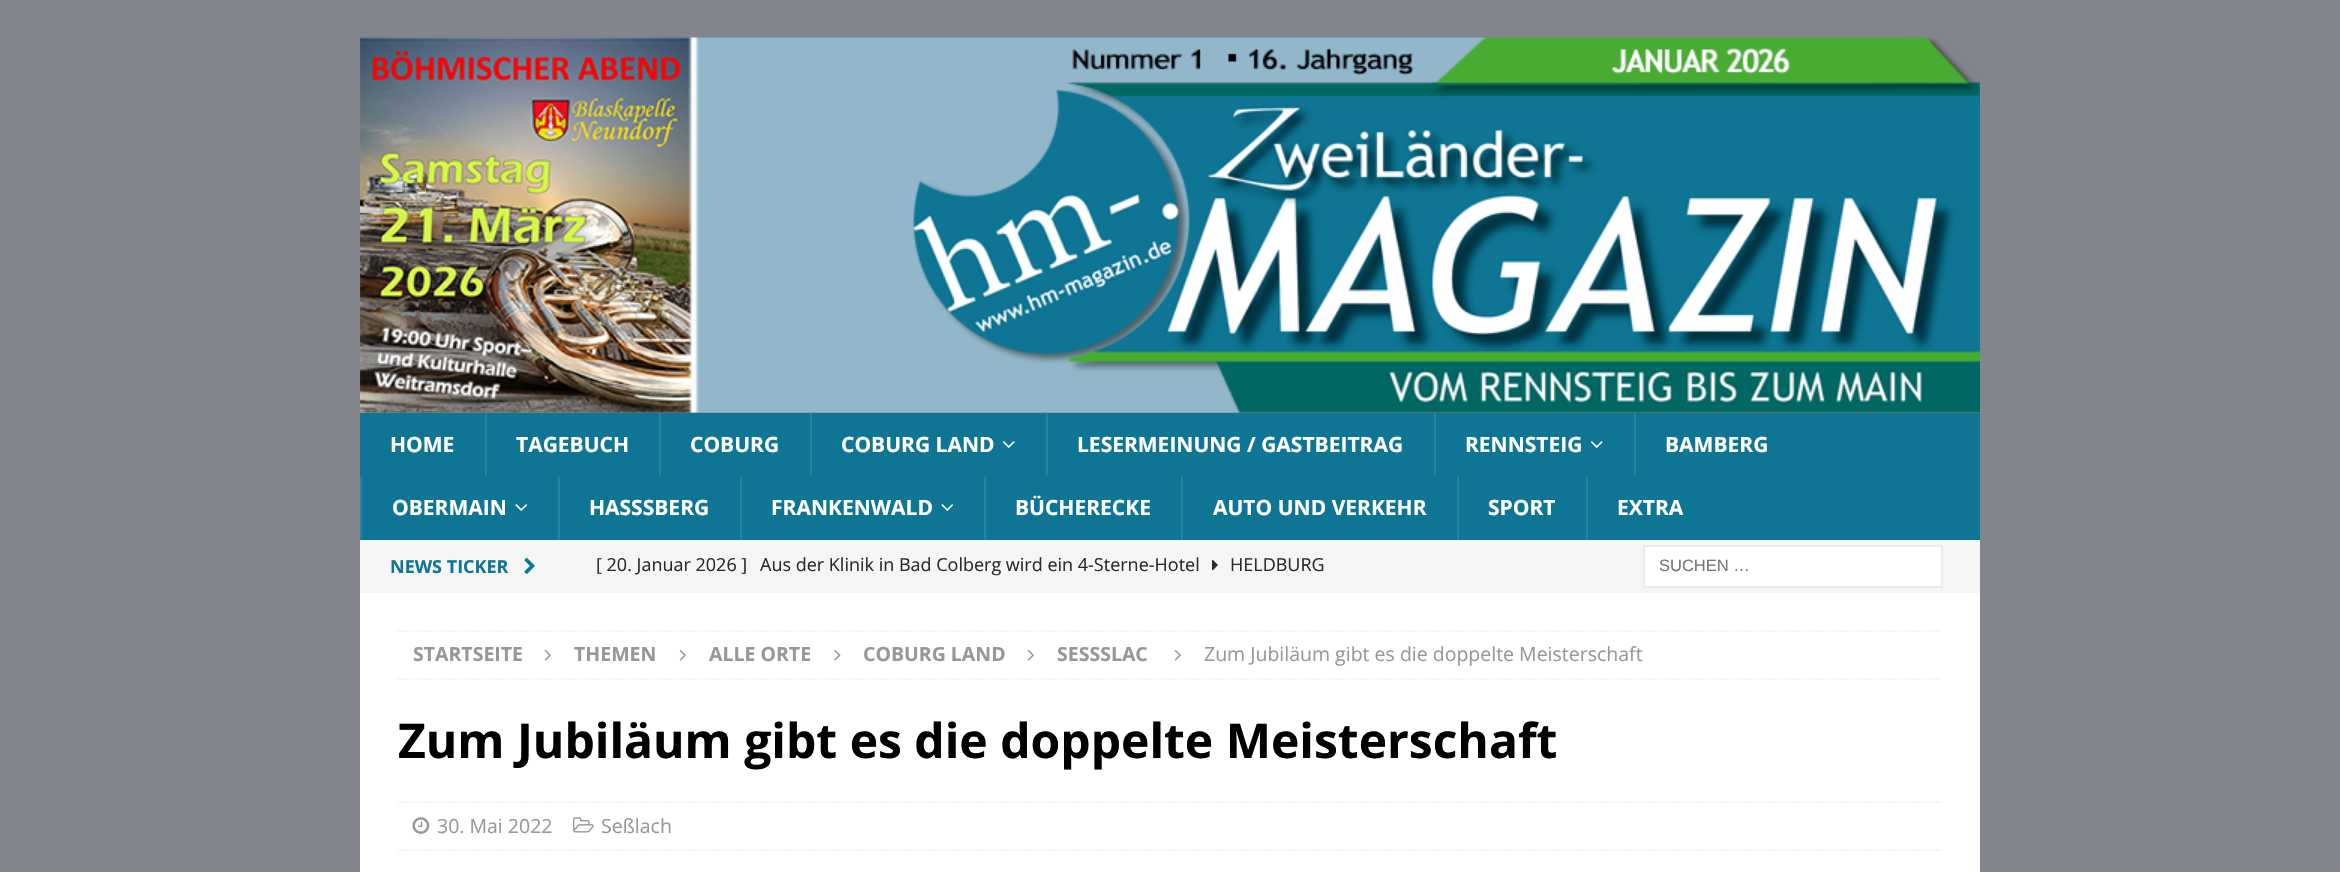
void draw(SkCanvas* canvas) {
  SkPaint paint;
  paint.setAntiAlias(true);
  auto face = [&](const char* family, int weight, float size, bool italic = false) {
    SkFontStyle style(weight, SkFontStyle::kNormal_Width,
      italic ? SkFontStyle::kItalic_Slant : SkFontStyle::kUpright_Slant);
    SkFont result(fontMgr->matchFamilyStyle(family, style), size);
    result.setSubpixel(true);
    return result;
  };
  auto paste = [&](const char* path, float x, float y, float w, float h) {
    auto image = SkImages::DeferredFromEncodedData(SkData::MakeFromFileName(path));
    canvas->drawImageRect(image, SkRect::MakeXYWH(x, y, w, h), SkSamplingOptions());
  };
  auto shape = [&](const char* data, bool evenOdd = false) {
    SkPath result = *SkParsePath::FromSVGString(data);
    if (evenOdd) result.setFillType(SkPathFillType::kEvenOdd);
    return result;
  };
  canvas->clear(0xff82868c);
  paste("img/1.png", 360, 37, 1620, 376);
  {
    const struct { float x, y, w, h; SkColor color; } items[] = {
      {360, 413, 1620, 127, 0xff0e7594},
      {485, 413, 2, 63, 0xff26839f},
      {659, 413, 2, 63, 0xff26839f},
      {810, 413, 2, 63, 0xff26839f},
    };
    for (auto [x, y, w, h, color] : items) {
      paint.setColor(color);
      canvas->drawRect(SkRect::MakeXYWH(x, y, w, h), paint);
    }
  }
  paste("img/2.png", 1003, 441, 12, 7);
  canvas->drawRect(SkRect::MakeXYWH(1046, 413, 2, 63), paint);
  canvas->drawRect(SkRect::MakeXYWH(1434, 413, 2, 63), paint);
  paste("img/2.png", 1591, 441, 12, 7);
  canvas->drawRect(SkRect::MakeXYWH(1634, 413, 2, 63), paint);
  canvas->drawRect(SkRect::MakeXYWH(360, 476, 2, 64), paint);
  paste("img/3.png", 515, 504, 12, 7);
  canvas->drawRect(SkRect::MakeXYWH(558, 476, 2, 64), paint);
  canvas->drawRect(SkRect::MakeXYWH(740, 476, 2, 64), paint);
  paste("img/3.png", 941, 504, 12, 7);
  {
    const struct { float x, y, w, h; SkColor color; } items[] = {
      {984, 476, 2, 64, 0xff26839f},
      {1181, 476, 2, 64, 0xff26839f},
      {1457, 476, 2, 64, 0xff26839f},
      {1586, 476, 2, 64, 0xff26839f},
      {360, 540, 1620, 53, 0xfff5f5f5},
    };
    for (auto [x, y, w, h, color] : items) {
      paint.setColor(color);
      canvas->drawRect(SkRect::MakeXYWH(x, y, w, h), paint);
    }
  }
  paste("img/4.png", 524, 557, 11, 17);
  paste("img/5.png", 1212, 560, 6, 11);
  paint.setColor(0xffffffff);
  canvas->drawRect(SkRect::MakeXYWH(1644, 546, 298, 41), paint);
  paint.setStroke(true);
  paint.setStrokeWidth(2);
  paint.setColor(0xffebebeb);
  canvas->drawRect(SkRect::MakeXYWH(1644, 546, 298, 41), paint);
  paint.setStroke(false);
  paint.setColor(0xffffffff);
  canvas->drawRect(SkRect::MakeXYWH(360, 593, 1620, 279), paint);
  paint.setStroke(true);
  paint.setStrokeWidth(1.5f);
  paint.setColor(0xffebebeb);
  paint.setPathEffect(SkDashPathEffect::Make({{1.5f, 1.5f}}, 0));
  canvas->drawPath(shape("M397.5 631H1942.5"), paint);
  paint.setPathEffect(nullptr);
  paint.setPathEffect(SkDashPathEffect::Make({{1.5f, 1.5f}}, 0));
  canvas->drawPath(shape("M397.5 679H1942.5"), paint);
  paint.setPathEffect(nullptr);
  paste("img/6.png", 544, 649, 7, 12);
  paste("img/6.png", 679, 649, 7, 12);
  paste("img/7.png", 834, 649, 7, 12);
  paste("img/6.png", 1027, 649, 7, 12);
  paste("img/6.png", 1174, 649, 7, 12);
  paint.setPathEffect(SkDashPathEffect::Make({{1.5f, 1.5f}}, 0));
  canvas->drawPath(shape("M397.5 802H1942.5"), paint);
  paint.setPathEffect(nullptr);
  paint.setPathEffect(SkDashPathEffect::Make({{1.5f, 1.5f}}, 0));
  canvas->drawPath(shape("M397.5 850H1942.5"), paint);
  paint.setPathEffect(nullptr);
  paste("img/8.png", 412, 817, 18, 17);
  paste("img/9.png", 573, 817, 21, 16);
  auto f0 = face("Open Sans", 700, 21);
  paint.setStroke(false);
  paint.setColor(0xffffffff);
  {
    const struct { const char* s; float x, y; } items[] = {
      {"HOME", 390, 452},
      {"TAGEBUCH", 516, 452},
      {"COBURG", 690, 452},
      {"COBURG LAND", 841, 452},
      {"LESERMEINUNG / GASTBEITRAG", 1077, 452},
      {"RENNSTEIG", 1465, 452},
      {"BAMBERG", 1665, 452},
      {"OBERMAIN", 392, 515},
      {"HASSSBERG", 589, 515},
      {"FRANKENWALD", 771, 515},
      {"BÜCHERECKE", 1015, 515},
      {"AUTO UND VERKEHR", 1213, 515},
      {"SPORT", 1488, 515},
      {"EXTRA", 1617, 515},
    };
    for (auto [s, x, y] : items) {
      canvas->drawString(s, x, y, f0, paint);
    }
  }
  auto f1 = face("Open Sans", 700, 18);
  paint.setColor(0xff0e7594);
  canvas->drawString("NEWS TICKER", 390, 573, f1, paint);
  auto f2 = face("Open Sans", 400, 18);
  paint.setColor(0xff2a2a2a);
  {
    const struct { const char* s; float x, y; } items[] = {
      {"[ 20. Januar 2026 ]", 596, 571},
      {"Aus der Klinik in Bad Colberg wird ein 4-Sterne-Hotel", 760, 571},
      {"HELDBURG", 1230, 571},
    };
    for (auto [s, x, y] : items) {
      canvas->drawString(s, x, y, f2, paint);
    }
  }
  auto f3 = face("Liberation Sans", 400, 16.5f);
  paint.setColor(0xff757575);
  canvas->drawString("SUCHEN …", 1659, 571, f3, paint);
  auto f4 = face("Open Sans", 700, 19.5f);
  paint.setColor(0xff979797);
  {
    const struct { const char* s; float x, y; } items[] = {
      {"STARTSEITE", 413, 661},
      {"THEMEN", 574, 661},
      {"ALLE ORTE", 709, 661},
      {"COBURG LAND", 863, 661},
      {"SESSSLAC", 1057, 661},
    };
    for (auto [s, x, y] : items) {
      canvas->drawString(s, x, y, f4, paint);
    }
  }
  auto f5 = face("Open Sans", 400, 19.5f);
  canvas->drawString("Zum Jubiläum gibt es die doppelte Meisterschaft", 1204, 661, f5, paint);
  auto f6 = face("Open Sans", 700, 48);
  paint.setColor(0xff000000);
  canvas->drawString("Zum Jubiläum gibt es die doppelte Meisterschaft", 398, 758, f6, paint);
  paint.setColor(0xff979797);
  canvas->drawString("30. Mai 2022", 437, 833, f5, paint);
  canvas->drawString("Seßlach", 601, 833, f5, paint);
}
